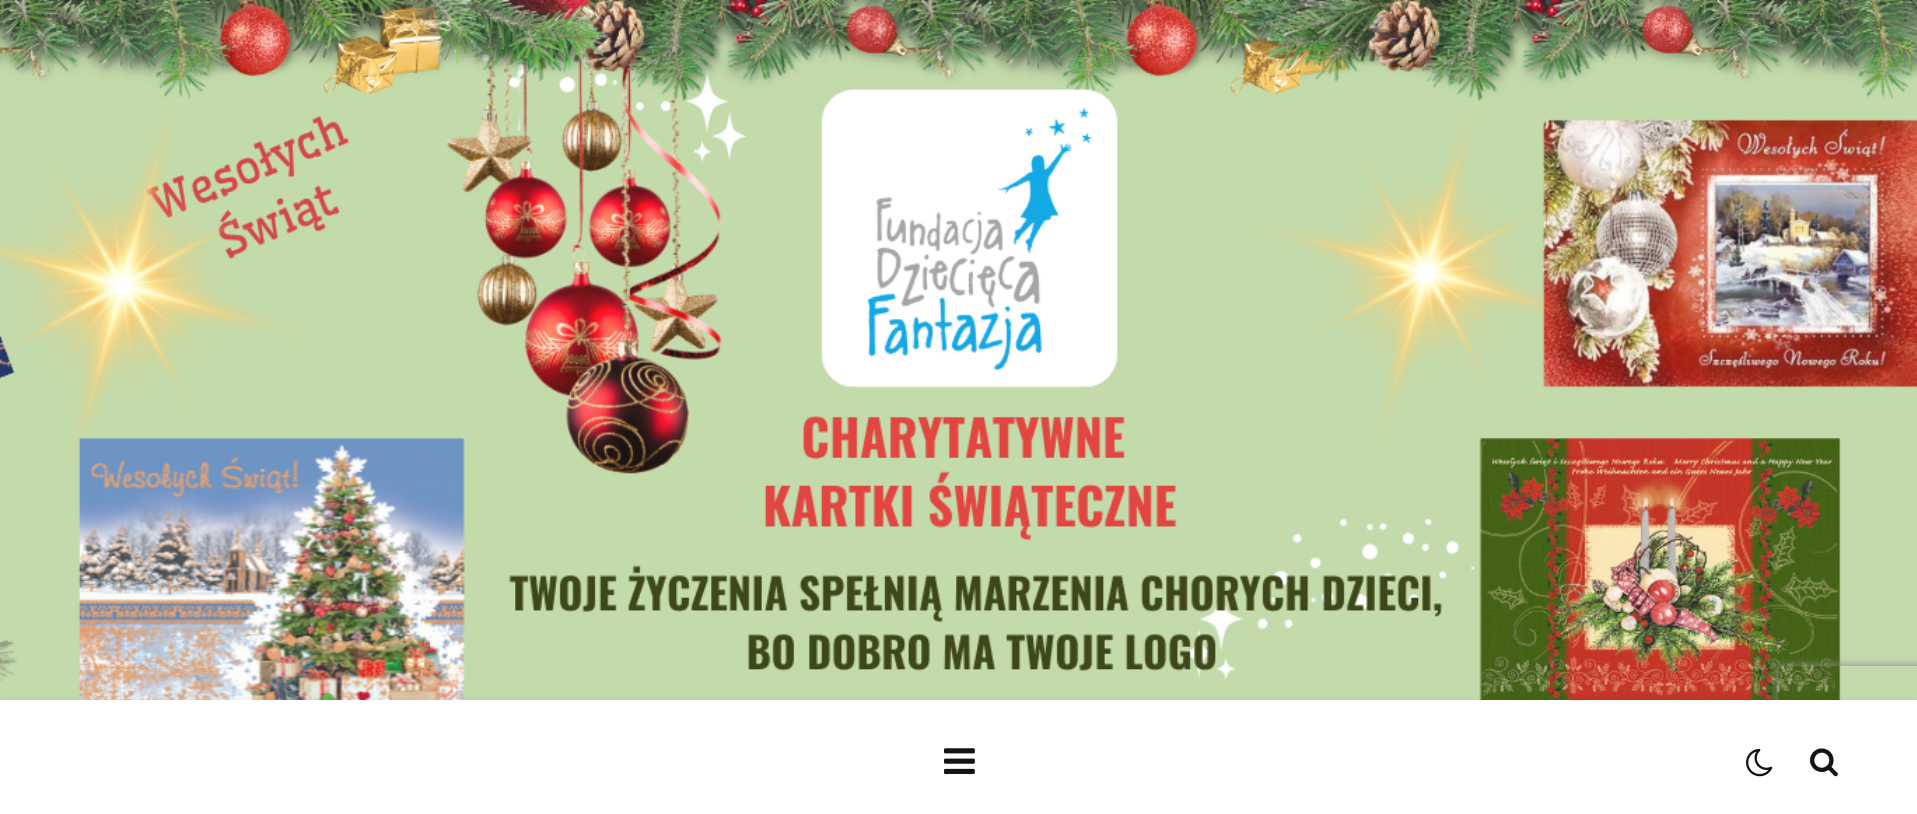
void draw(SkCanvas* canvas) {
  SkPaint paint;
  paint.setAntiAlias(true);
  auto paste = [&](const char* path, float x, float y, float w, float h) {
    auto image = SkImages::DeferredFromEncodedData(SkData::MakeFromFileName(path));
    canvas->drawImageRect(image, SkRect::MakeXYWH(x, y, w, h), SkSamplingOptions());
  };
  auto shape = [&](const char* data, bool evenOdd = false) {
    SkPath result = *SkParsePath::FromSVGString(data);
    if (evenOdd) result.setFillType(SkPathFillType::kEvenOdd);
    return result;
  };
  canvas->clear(0xffffffff);
  paste("img/1.png", 0, 0, 1917, 700);
  paint.setColor(0x1a141414);
  paint.setMaskFilter(SkMaskFilter::MakeBlur(kNormal_SkBlurStyle, 5));
  canvas->drawRect(SkRect::MakeXYWH(0, 702, 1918, 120), paint);
  paint.setMaskFilter(nullptr);
  canvas->save();
  canvas->clipPath(shape("M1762 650H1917V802H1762ZM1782 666H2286C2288 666 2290 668 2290 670V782C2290 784 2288 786 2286 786H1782C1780 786 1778 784 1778 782V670C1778 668 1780 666 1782 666Z", true), true);
  paint.setColor(0xff8a8a8a);
  paint.setMaskFilter(SkMaskFilter::MakeBlur(kNormal_SkBlurStyle, 5));
  canvas->drawRoundRect(SkRect::MakeXYWH(1778, 666, 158, 120), 4, 4, paint);
  paint.setMaskFilter(nullptr);
  canvas->restore();
  paint.setColor(0xffffffff);
  canvas->drawRect(SkRect::MakeXYWH(0, 700, 1917, 114), paint);
  paste("img/2.png", 944, 748, 31, 26);
  paste("img/3.png", 1746, 748, 27, 29);
  paste("img/4.png", 1810, 748, 28, 29);
}
